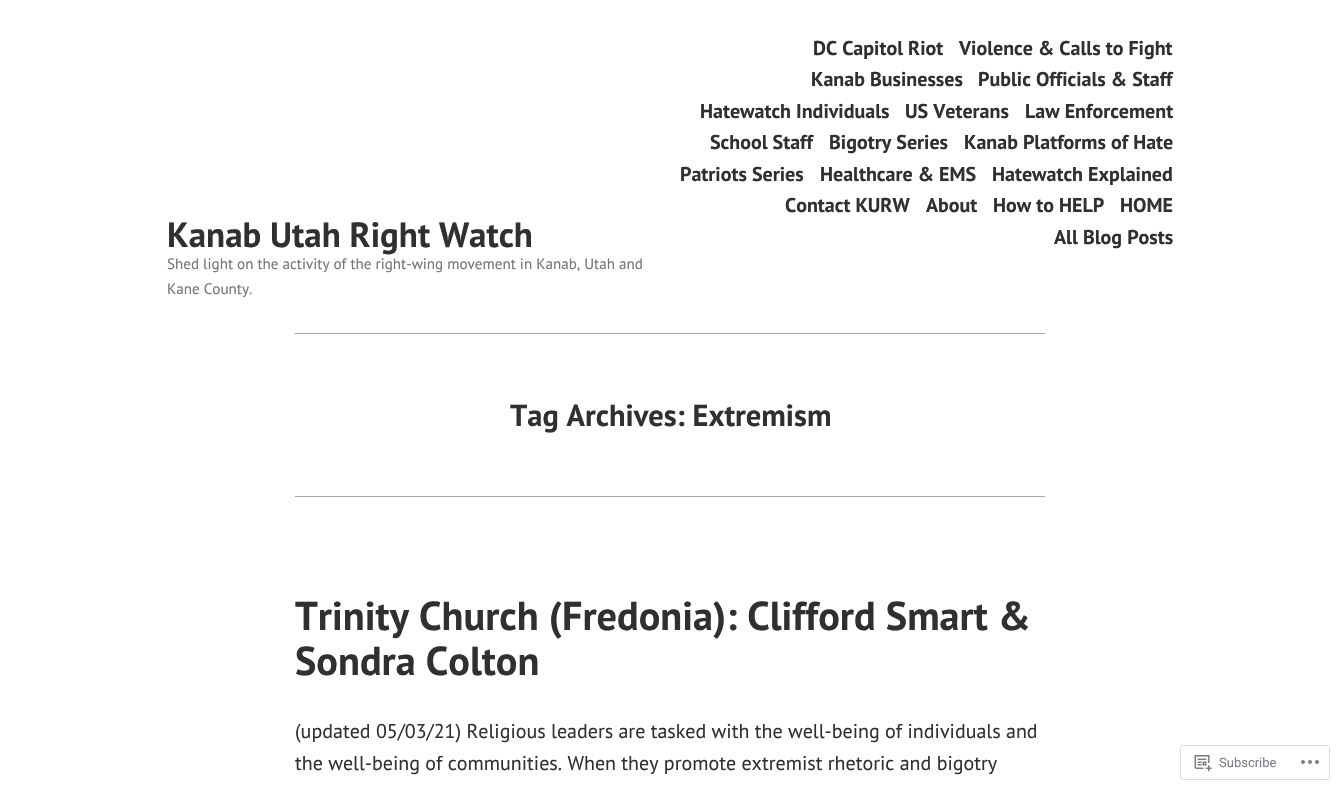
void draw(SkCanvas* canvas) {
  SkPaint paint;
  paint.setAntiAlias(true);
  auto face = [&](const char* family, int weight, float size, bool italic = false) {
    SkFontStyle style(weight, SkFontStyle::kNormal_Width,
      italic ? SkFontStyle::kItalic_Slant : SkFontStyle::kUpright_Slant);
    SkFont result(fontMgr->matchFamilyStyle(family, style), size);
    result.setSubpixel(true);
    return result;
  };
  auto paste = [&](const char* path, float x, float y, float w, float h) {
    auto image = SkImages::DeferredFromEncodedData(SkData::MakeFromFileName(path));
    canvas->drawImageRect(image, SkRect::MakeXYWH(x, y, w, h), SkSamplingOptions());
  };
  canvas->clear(0xffffffff);
  paint.setColor(0xffa5a5a5);
  canvas->drawRect(SkRect::MakeXYWH(295, 333, 750, 1), paint);
  canvas->drawRect(SkRect::MakeXYWH(295, 496, 750, 1), paint);
  paint.setStroke(true);
  paint.setStrokeWidth(1);
  paint.setColor(0xffdddddf);
  canvas->drawRoundRect(SkRect::MakeXYWH(1180.5f, 745.5f, 149, 34), 2.5f, 2.5f, paint);
  paste("img/1.png", 1194, 755, 18, 17);
  paste("img/2.png", 1301, 760, 18, 4);
  auto f0 = face("PT Sans", 700, 35);
  paint.setStroke(false);
  paint.setColor(0xff303030);
  canvas->drawString("Kanab Utah Right Watch", 167, 247, f0, paint);
  auto f1 = face("PT Sans", 700, 20);
  {
    const struct { const char* s; float x, y; } items[] = {
      {"DC Capitol Riot", 813, 55},
      {"Violence & Calls to Fight", 959, 55},
      {"Kanab Businesses", 811, 86},
      {"Public Officials & Staff", 978, 86},
      {"Hatewatch Individuals", 700, 118},
      {"US Veterans", 905, 118},
      {"Law Enforcement", 1025, 118},
      {"School Staff", 710, 149},
      {"Bigotry Series", 829, 149},
      {"Kanab Platforms of Hate", 964, 149},
      {"Patriots Series", 680, 181},
      {"Healthcare & EMS", 820, 181},
      {"Hatewatch Explained", 992, 181},
      {"Contact KURW", 785, 212},
      {"About", 926, 212},
      {"How to HELP", 993, 212},
      {"HOME", 1120, 212},
      {"All Blog Posts", 1054, 244},
    };
    for (auto [s, x, y] : items) {
      canvas->drawString(s, x, y, f1, paint);
    }
  }
  auto f2 = face("PT Sans", 400, 15.1f);
  paint.setColor(0xff757575);
  canvas->drawString("Shed light on the activity of the right-wing movement in Kanab, Utah and", 167, 269, f2, paint);
  canvas->drawString("Kane County.", 167, 294, f2, paint);
  auto f3 = face("PT Sans", 700, 30.5f);
  paint.setColor(0xff303030);
  canvas->drawString("Tag Archives: Extremism", 510, 426, f3, paint);
  auto f4 = face("PT Sans", 700, 40.25f);
  canvas->drawString("Trinity Church (Fredonia): Clifford Smart &", 295, 630, f4, paint);
  canvas->drawString("Sondra Colton", 295, 675, f4, paint);
  auto f5 = face("PT Sans", 400, 20);
  canvas->drawString("(updated 05/03/21) Religious leaders are tasked with the well-being of individuals and", 295, 738, f5, paint);
  canvas->drawString("the well-being of communities. When they promote extremist rhetoric and bigotry", 295, 770, f5, paint);
  auto f6 = face("Roboto", 400, 13);
  paint.setColor(0xff7b7f85);
  canvas->drawString("Subscribe", 1219, 767, f6, paint);
}
